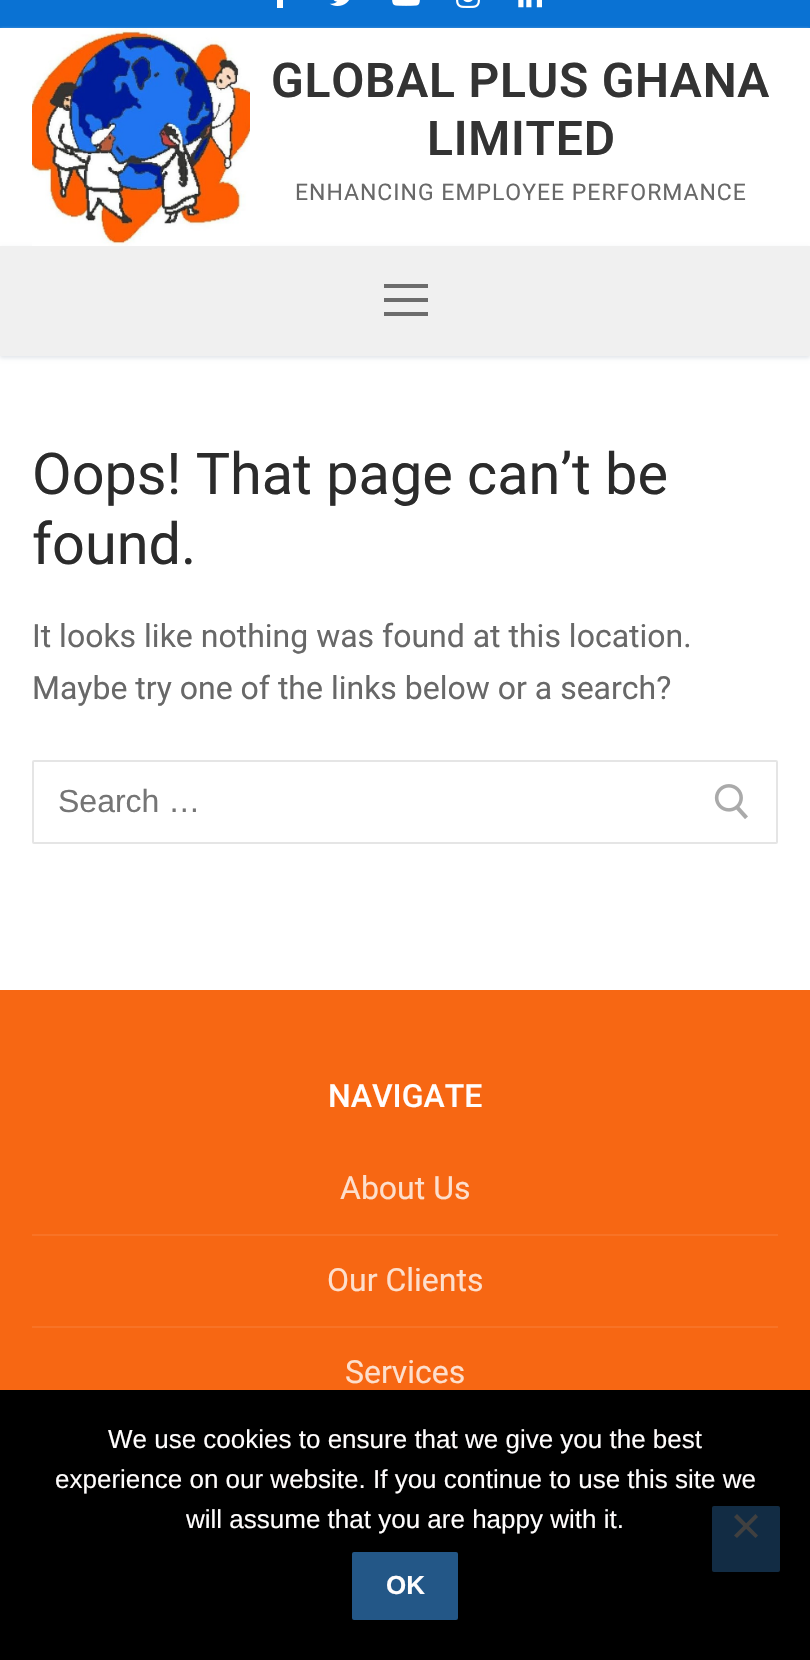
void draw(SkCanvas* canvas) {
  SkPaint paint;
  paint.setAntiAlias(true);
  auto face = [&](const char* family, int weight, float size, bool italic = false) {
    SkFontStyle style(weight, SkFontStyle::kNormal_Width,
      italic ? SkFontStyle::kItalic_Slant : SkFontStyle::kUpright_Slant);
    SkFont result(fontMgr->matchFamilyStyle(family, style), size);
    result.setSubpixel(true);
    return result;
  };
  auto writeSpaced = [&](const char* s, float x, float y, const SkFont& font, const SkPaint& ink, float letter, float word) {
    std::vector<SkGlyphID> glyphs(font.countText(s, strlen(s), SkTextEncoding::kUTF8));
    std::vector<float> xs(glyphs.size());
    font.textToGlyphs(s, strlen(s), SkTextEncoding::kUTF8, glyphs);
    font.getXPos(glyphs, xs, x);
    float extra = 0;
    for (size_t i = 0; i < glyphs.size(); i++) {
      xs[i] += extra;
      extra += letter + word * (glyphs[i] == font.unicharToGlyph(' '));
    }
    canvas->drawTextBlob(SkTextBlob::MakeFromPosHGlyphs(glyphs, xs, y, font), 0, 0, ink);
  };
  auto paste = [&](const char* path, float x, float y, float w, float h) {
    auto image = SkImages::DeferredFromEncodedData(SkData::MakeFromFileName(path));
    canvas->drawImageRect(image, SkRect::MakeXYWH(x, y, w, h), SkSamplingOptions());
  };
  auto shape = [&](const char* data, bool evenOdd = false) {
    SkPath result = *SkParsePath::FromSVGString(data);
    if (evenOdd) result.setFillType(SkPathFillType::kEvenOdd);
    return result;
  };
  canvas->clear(0xffffffff);
  paint.setColor(0xff0a72d3);
  canvas->drawRect(SkRect::MakeXYWH(0, 0, 810, 28), paint);
  paint.setColor(0xffffffff);
  canvas->drawRect(SkRect::MakeXYWH(277, 0, 6, 8), paint);
  paste("img/1.png", 329, 0, 20, 6);
  paste("img/2.png", 392, 0, 28, 6);
  paste("img/3.png", 456, 0, 24, 8);
  paste("img/4.png", 518, 0, 24, 8);
  canvas->save();
  canvas->clipRect(SkRect::MakeXYWH(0, 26, 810, 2));
  paint.setColor(0xffe1e5ea);
  paint.setMaskFilter(SkMaskFilter::MakeBlur(kNormal_SkBlurStyle, 2));
  canvas->drawRect(SkRect::MakeXYWH(0, 30, 810, 218), paint);
  paint.setMaskFilter(nullptr);
  canvas->restore();
  paint.setMaskFilter(SkMaskFilter::MakeBlur(kNormal_SkBlurStyle, 2));
  canvas->drawRect(SkRect::MakeXYWH(0, 248, 810, 110), paint);
  paint.setMaskFilter(nullptr);
  paste("img/5.png", 32, 28, 218, 218);
  {
    const struct { float x, y, w, h; SkColor color; } items[] = {
      {0, 246, 810, 110, 0xfff0f0f0},
      {384, 298, 44, 4, 0xff6c6c6c},
      {384, 284, 44, 4, 0xff6c6c6c},
      {384, 312, 44, 4, 0xff6c6c6c},
    };
    for (auto [x, y, w, h, color] : items) {
      paint.setColor(color);
      canvas->drawRect(SkRect::MakeXYWH(x, y, w, h), paint);
    }
  }
  paint.setStroke(true);
  paint.setStrokeWidth(2);
  paint.setColor(0xffe5e5e5);
  canvas->drawRoundRect(SkRect::MakeXYWH(33, 761, 744, 82), 1, 1, paint);
  paste("img/6.png", 714, 784, 34, 35);
  paint.setStroke(false);
  {
    const struct { float x, y, w, h; SkColor color; } items[] = {
      {0, 990, 810, 400, 0xfff76713},
      {32, 1234, 746, 2, 0xfff87326},
      {32, 1326, 746, 2, 0xfff87326},
      {0, 1390, 810, 270, 0xff000000},
    };
    for (auto [x, y, w, h, color] : items) {
      paint.setColor(color);
      canvas->drawRect(SkRect::MakeXYWH(x, y, w, h), paint);
    }
  }
  paint.setColor(0xff122c44);
  canvas->drawRoundRect(SkRect::MakeXYWH(712, 1506, 68, 66), 2, 2, paint);
  paint.setColor(0xff404040);
  canvas->drawPath(shape("M755.5 1514L758 1517L737 1538L734 1535.5Z"), paint);
  canvas->drawPath(shape("M734 1517L737 1514L758 1535.5L755.5 1538Z"), paint);
  paint.setColor(0xff235787);
  canvas->drawRoundRect(SkRect::MakeXYWH(352, 1552, 106, 68), 2, 2, paint);
  auto f0 = face("Roboto", 600, 48);
  paint.setColor(0xff333333);
  writeSpaced("GLOBAL PLUS GHANA", 271, 97, f0, paint, 0.75f, 0);
  writeSpaced("LIMITED", 427, 155, f0, paint, 0.75f, 0);
  auto f1 = face("Roboto", 400, 23);
  paint.setColor(0xff686868);
  writeSpaced("ENHANCING EMPLOYEE PERFORMANCE", 295, 200, f1, paint, 1, 0);
  auto f2 = face("Roboto", 400, 57.6f);
  paint.setColor(0xff2b2b2b);
  canvas->drawString("Oops! That page can’t be", 32, 494, f2, paint);
  canvas->drawString("found.", 32, 564, f2, paint);
  auto f3 = face("Roboto", 400, 32);
  paint.setColor(0xff686868);
  canvas->drawString("It looks like nothing was found at this location.", 32, 647, f3, paint);
  canvas->drawString("Maybe try one of the links below or a search?", 32, 699, f3, paint);
  auto f4 = face("Liberation Sans", 400, 32);
  paint.setColor(0xff757575);
  canvas->drawString("Search …", 58, 812, f4, paint);
  auto f5 = face("Roboto", 500, 32);
  paint.setColor(0xfffffdfd);
  canvas->drawString("NAVIGATE", 328, 1107, f5, paint);
  paint.setColor(0xfffddfcd);
  {
    const struct { const char* s; float x, y; } items[] = {
      {"About Us", 340, 1199},
      {"Our Clients", 327, 1291},
      {"Services", 345, 1383},
    };
    for (auto [s, x, y] : items) {
      canvas->drawString(s, x, y, f3, paint);
    }
  }
  auto f6 = face("Liberation Sans", 400, 26);
  paint.setColor(0xfffffdfd);
  {
    const struct { const char* s; float x, y; } items[] = {
      {"We use cookies to ensure that we give you the best", 108, 1448},
      {"experience on our website. If you continue to use this site we", 55, 1488},
      {"will assume that you are happy with it.", 186, 1528},
    };
    for (auto [s, x, y] : items) {
      canvas->drawString(s, x, y, f6, paint);
    }
  }
  auto f7 = face("Liberation Sans", 700, 26);
  canvas->drawString("OK", 386, 1594, f7, paint);
}
